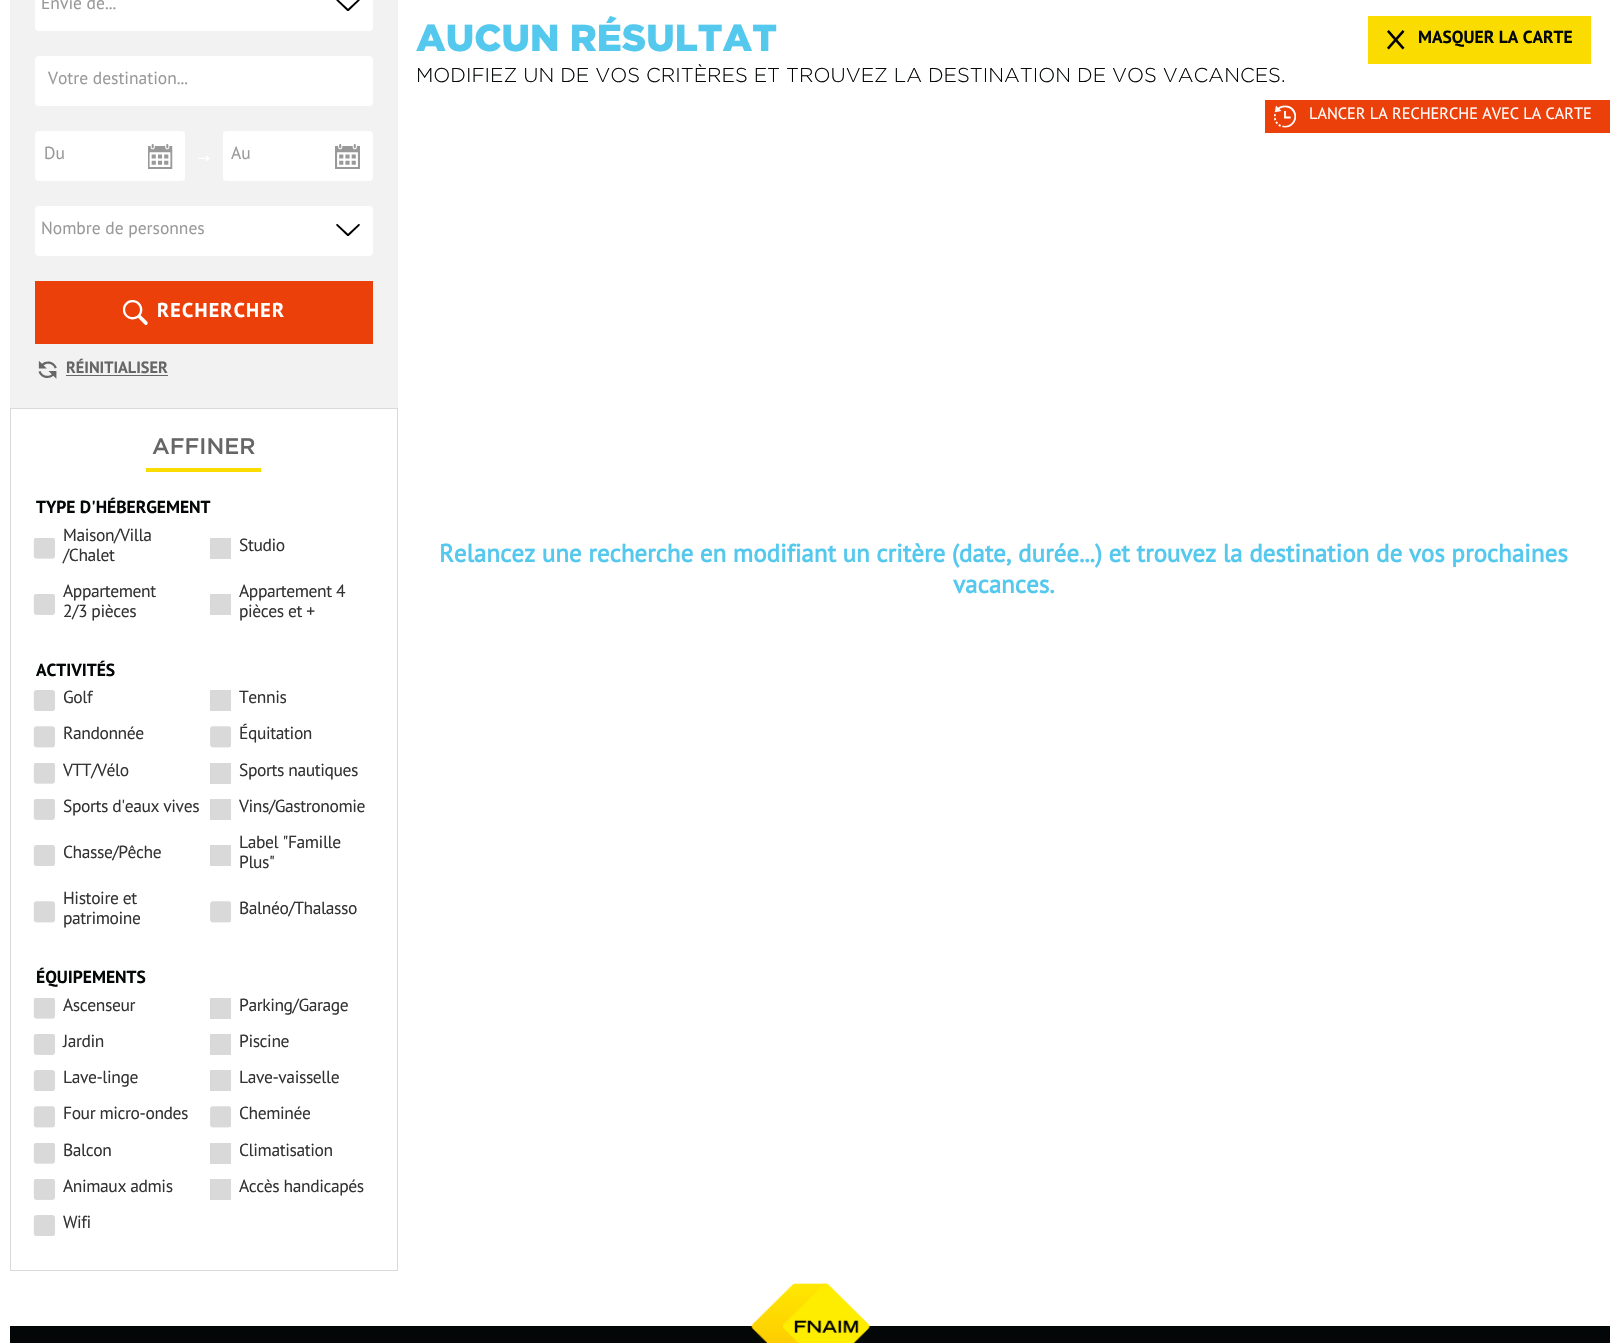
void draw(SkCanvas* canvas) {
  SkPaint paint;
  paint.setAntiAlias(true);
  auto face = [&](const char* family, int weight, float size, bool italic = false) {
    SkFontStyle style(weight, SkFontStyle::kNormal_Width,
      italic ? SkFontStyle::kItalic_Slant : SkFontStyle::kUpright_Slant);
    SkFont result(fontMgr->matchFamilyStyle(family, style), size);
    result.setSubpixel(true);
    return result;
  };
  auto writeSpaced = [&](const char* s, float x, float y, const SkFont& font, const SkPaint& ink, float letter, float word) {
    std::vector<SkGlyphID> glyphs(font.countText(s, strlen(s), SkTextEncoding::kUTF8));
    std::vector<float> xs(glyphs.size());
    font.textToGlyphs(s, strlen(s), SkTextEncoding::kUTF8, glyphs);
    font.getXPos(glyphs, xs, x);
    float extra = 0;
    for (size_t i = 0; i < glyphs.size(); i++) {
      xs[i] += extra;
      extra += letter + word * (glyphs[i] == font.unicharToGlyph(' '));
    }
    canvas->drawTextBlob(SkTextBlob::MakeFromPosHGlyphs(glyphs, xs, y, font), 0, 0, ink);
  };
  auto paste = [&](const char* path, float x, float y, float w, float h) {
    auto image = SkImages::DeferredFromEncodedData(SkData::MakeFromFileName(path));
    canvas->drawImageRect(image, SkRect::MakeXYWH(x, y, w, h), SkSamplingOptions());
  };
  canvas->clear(0xffffffff);
  paint.setColor(0xfff2f2f2);
  canvas->drawRect(SkRect::MakeXYWH(10, 0, 388, 408), paint);
  paint.setColor(0xffffffff);
  canvas->drawRoundRect(SkRect::MakeXYWH(35, -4, 338, 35), 4, 4, paint);
  paste("img/1.png", 336, 0, 24, 11);
  canvas->drawRoundRect(SkRect::MakeXYWH(35, 56, 338, 50), 4, 4, paint);
  paste("img/2.png", 198, 155, 12, 6);
  canvas->drawRoundRect(SkRect::MakeXYWH(35, 131, 150, 50), 4, 4, paint);
  paste("img/3.png", 148, 144, 25, 25);
  canvas->drawRoundRect(SkRect::MakeXYWH(223, 131, 150, 50), 4, 4, paint);
  paste("img/4.png", 335, 144, 25, 25);
  canvas->drawRoundRect(SkRect::MakeXYWH(35, 206, 338, 50), 4, 4, paint);
  paste("img/5.png", 336, 224, 24, 12);
  paint.setColor(0xffec400b);
  canvas->drawRect(SkRect::MakeXYWH(35, 281, 338, 63), paint);
  paste("img/6.png", 123, 300, 25, 25);
  paste("img/7.png", 38, 361, 19, 18);
  paint.setColor(0xff666666);
  canvas->drawRect(SkRect::MakeXYWH(66, 375, 102, 1), paint);
  paint.setStroke(true);
  paint.setStrokeWidth(1);
  paint.setColor(0xffdadada);
  canvas->drawRect(SkRect::MakeXYWH(10.5f, 408.5f, 387, 862), paint);
  paint.setStroke(false);
  paint.setColor(0xfffadc00);
  canvas->drawRect(SkRect::MakeXYWH(146, 468, 115, 4), paint);
  paste("img/8.png", 33, 538, 22, 21);
  paint.setColor(0xffd9d9d9);
  canvas->drawRect(SkRect::MakeXYWH(210, 538, 21, 21), paint);
  paste("img/9.png", 33, 594, 22, 21);
  canvas->drawRect(SkRect::MakeXYWH(210, 594, 21, 21), paint);
  paste("img/10.png", 33, 690, 22, 21);
  canvas->drawRect(SkRect::MakeXYWH(210, 690, 21, 21), paint);
  paste("img/11.png", 33, 726, 22, 22);
  paste("img/12.png", 210, 726, 21, 22);
  paste("img/8.png", 33, 763, 22, 21);
  canvas->drawRect(SkRect::MakeXYWH(210, 763, 21, 21), paint);
  paste("img/9.png", 33, 799, 22, 21);
  canvas->drawRect(SkRect::MakeXYWH(210, 799, 21, 21), paint);
  paste("img/10.png", 33, 845, 22, 21);
  canvas->drawRect(SkRect::MakeXYWH(210, 845, 21, 21), paint);
  paste("img/11.png", 33, 901, 22, 22);
  paste("img/12.png", 210, 901, 21, 22);
  paste("img/8.png", 33, 998, 22, 21);
  canvas->drawRect(SkRect::MakeXYWH(210, 998, 21, 21), paint);
  paste("img/9.png", 33, 1034, 22, 21);
  canvas->drawRect(SkRect::MakeXYWH(210, 1034, 21, 21), paint);
  paste("img/10.png", 33, 1070, 22, 21);
  canvas->drawRect(SkRect::MakeXYWH(210, 1070, 21, 21), paint);
  paste("img/11.png", 33, 1106, 22, 22);
  paste("img/12.png", 210, 1106, 21, 22);
  paste("img/8.png", 33, 1143, 22, 21);
  canvas->drawRect(SkRect::MakeXYWH(210, 1143, 21, 21), paint);
  paste("img/9.png", 33, 1179, 22, 21);
  canvas->drawRect(SkRect::MakeXYWH(210, 1179, 21, 21), paint);
  paste("img/10.png", 33, 1215, 22, 21);
  paint.setColor(0xfffadc00);
  canvas->drawRect(SkRect::MakeXYWH(1368, 16, 223, 48), paint);
  paste("img/13.png", 1387, 30, 18, 20);
  paint.setColor(0xffec400b);
  canvas->drawRect(SkRect::MakeXYWH(1265, 100, 345, 33), paint);
  paste("img/14.png", 1274, 105, 22, 23);
  paint.setColor(0xff040707);
  canvas->drawRect(SkRect::MakeXYWH(10, 1326, 1600, 17), paint);
  paste("img/15.png", 751, 1283, 119, 60);
  auto f0 = face("PT Sans", 400, 17.5f);
  paint.setColor(0xff999999);
  {
    const struct { const char* s; float x, y; } items[] = {
      {"Envie de...", 41, 9},
      {"Votre destination...", 48, 84},
      {"Du", 44, 159},
      {"Au", 231, 159},
      {"Nombre de personnes", 41, 234},
    };
    for (auto [s, x, y] : items) {
      canvas->drawString(s, x, y, f0, paint);
    }
  }
  auto f1 = face("PT Sans", 700, 20);
  paint.setColor(0xffffffff);
  writeSpaced("RECHERCHER", 157, 317, f1, paint, 1.25f, 0);
  auto f2 = face("PT Sans", 700, 16.25f);
  paint.setColor(0xff666666);
  canvas->drawString("RÉINITIALISER", 66, 373, f2, paint);
  auto f3 = face("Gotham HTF", 500, 22.5f);
  canvas->drawString("AFFINER", 152, 454, f3, paint);
  auto f4 = face("PT Sans", 700, 17.5f);
  paint.setColor(0xff040707);
  canvas->drawString("TYPE D'HÉBERGEMENT", 36, 513, f4, paint);
  paint.setColor(0xff333333);
  {
    const struct { const char* s; float x, y; } items[] = {
      {"Maison/Villa", 63, 541},
      {"/Chalet", 63, 561},
      {"Studio", 239, 551},
      {"Appartement", 63, 597},
      {"2/3 pièces", 63, 617},
      {"Appartement 4", 239, 597},
      {"pièces et +", 239, 617},
    };
    for (auto [s, x, y] : items) {
      writeSpaced(s, x, y, f0, paint, -0.4f, 0);
    }
  }
  paint.setColor(0xff040707);
  canvas->drawString("ACTIVITÉS", 36, 676, f4, paint);
  paint.setColor(0xff333333);
  {
    const struct { const char* s; float x, y; } items[] = {
      {"Golf", 63, 703},
      {"Tennis", 239, 703},
      {"Randonnée", 63, 739},
      {"Équitation", 239, 739},
      {"VTT/Vélo", 63, 776},
      {"Sports nautiques", 239, 776},
      {"Sports d'eaux vives", 63, 812},
      {"Vins/Gastronomie", 239, 812},
      {"Chasse/Pêche", 63, 858},
      {"Label \"Famille", 239, 848},
      {"Plus\"", 239, 868},
      {"Histoire et", 63, 904},
      {"patrimoine", 63, 924},
      {"Balnéo/Thalasso", 239, 914},
    };
    for (auto [s, x, y] : items) {
      writeSpaced(s, x, y, f0, paint, -0.4f, 0);
    }
  }
  paint.setColor(0xff040707);
  canvas->drawString("ÉQUIPEMENTS", 36, 983, f4, paint);
  paint.setColor(0xff333333);
  {
    const struct { const char* s; float x, y; } items[] = {
      {"Ascenseur", 63, 1011},
      {"Parking/Garage", 239, 1011},
      {"Jardin", 63, 1047},
      {"Piscine", 239, 1047},
      {"Lave-linge", 63, 1083},
      {"Lave-vaisselle", 239, 1083},
      {"Four micro-ondes", 63, 1119},
      {"Cheminée", 239, 1119},
      {"Balcon", 63, 1156},
      {"Climatisation", 239, 1156},
      {"Animaux admis", 63, 1192},
      {"Accès handicapés", 239, 1192},
      {"Wifi", 63, 1228},
    };
    for (auto [s, x, y] : items) {
      writeSpaced(s, x, y, f0, paint, -0.4f, 0);
    }
  }
  auto f5 = face("Gotham HTF", 900, 37.5f);
  paint.setColor(0xff55c8ee);
  canvas->drawString("AUCUN RÉSULTAT", 416, 51, f5, paint);
  auto f6 = face("Gotham HTF", 300, 20);
  paint.setColor(0xff040707);
  canvas->drawString("MODIFIEZ UN DE VOS CRITÈRES ET TROUVEZ LA DESTINATION DE VOS VACANCES.", 416, 82, f6, paint);
  canvas->drawString("MASQUER LA CARTE", 1418, 43, f4, paint);
  auto f7 = face("PT Sans", 400, 16.25f);
  paint.setColor(0xffffffff);
  canvas->drawString("LANCER LA RECHERCHE AVEC LA CARTE", 1309, 119, f7, paint);
  auto f8 = face("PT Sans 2", 700, 25);
  paint.setColor(0xff55c8ee);
  canvas->drawString("Relancez une recherche en modifiant un critère (date, durée...) et trouvez la destination de vos prochaines", 439, 562, f8, paint);
  canvas->drawString("vacances.", 953, 593, f8, paint);
}
